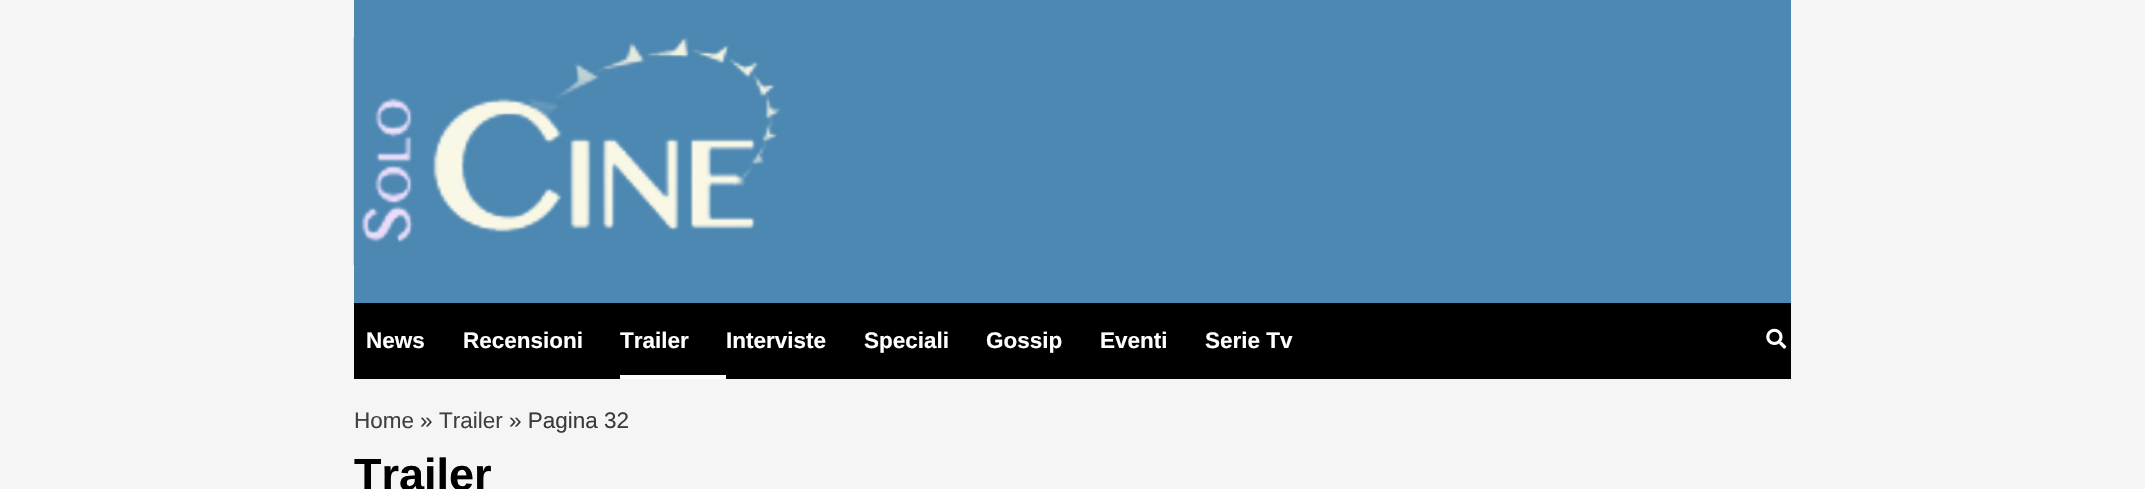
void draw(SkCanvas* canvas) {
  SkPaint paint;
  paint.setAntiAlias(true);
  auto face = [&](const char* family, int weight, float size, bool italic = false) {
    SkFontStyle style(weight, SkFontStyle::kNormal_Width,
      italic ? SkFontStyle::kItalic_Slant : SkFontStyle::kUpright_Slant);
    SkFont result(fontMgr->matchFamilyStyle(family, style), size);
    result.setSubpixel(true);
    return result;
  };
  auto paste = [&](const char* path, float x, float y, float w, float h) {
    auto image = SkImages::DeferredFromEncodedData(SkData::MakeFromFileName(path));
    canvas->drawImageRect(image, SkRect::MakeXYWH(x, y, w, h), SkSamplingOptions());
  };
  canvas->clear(0xfff5f5f5);
  paint.setColor(0xff4c88b2);
  canvas->drawRect(SkRect::MakeXYWH(354, 0, 1437, 303), paint);
  paste("img/1.png", 353, 37, 428, 228);
  paint.setColor(0xff000000);
  canvas->drawRect(SkRect::MakeXYWH(354, 303, 1437, 76), paint);
  paint.setColor(0xffffffff);
  canvas->drawRect(SkRect::MakeXYWH(620, 375, 106, 4), paint);
  paste("img/2.png", 1766, 328, 21, 21);
  auto f0 = face("Liberation Sans", 700, 22.5f);
  {
    const struct { const char* s; float x, y; } items[] = {
      {"News", 366, 348},
      {"Recensioni", 463, 348},
      {"Trailer", 620, 348},
      {"Interviste", 726, 348},
      {"Speciali", 864, 348},
      {"Gossip", 986, 348},
      {"Eventi", 1100, 348},
      {"Serie Tv", 1205, 348},
    };
    for (auto [s, x, y] : items) {
      canvas->drawString(s, x, y, f0, paint);
    }
  }
  auto f1 = face("Liberation Sans", 400, 22.5f);
  paint.setColor(0xff404040);
  canvas->drawString("Home", 354, 428, f1, paint);
  paint.setColor(0xff3a3a3a);
  canvas->drawString("»", 420, 428, f1, paint);
  paint.setColor(0xff404040);
  canvas->drawString("Trailer", 439, 428, f1, paint);
  paint.setColor(0xff3a3a3a);
  canvas->drawString("» Pagina 32", 509, 428, f1, paint);
  auto f2 = face("Liberation Sans", 700, 45);
  paint.setColor(0xff000000);
  canvas->drawString("Trailer", 354, 490, f2, paint);
}
